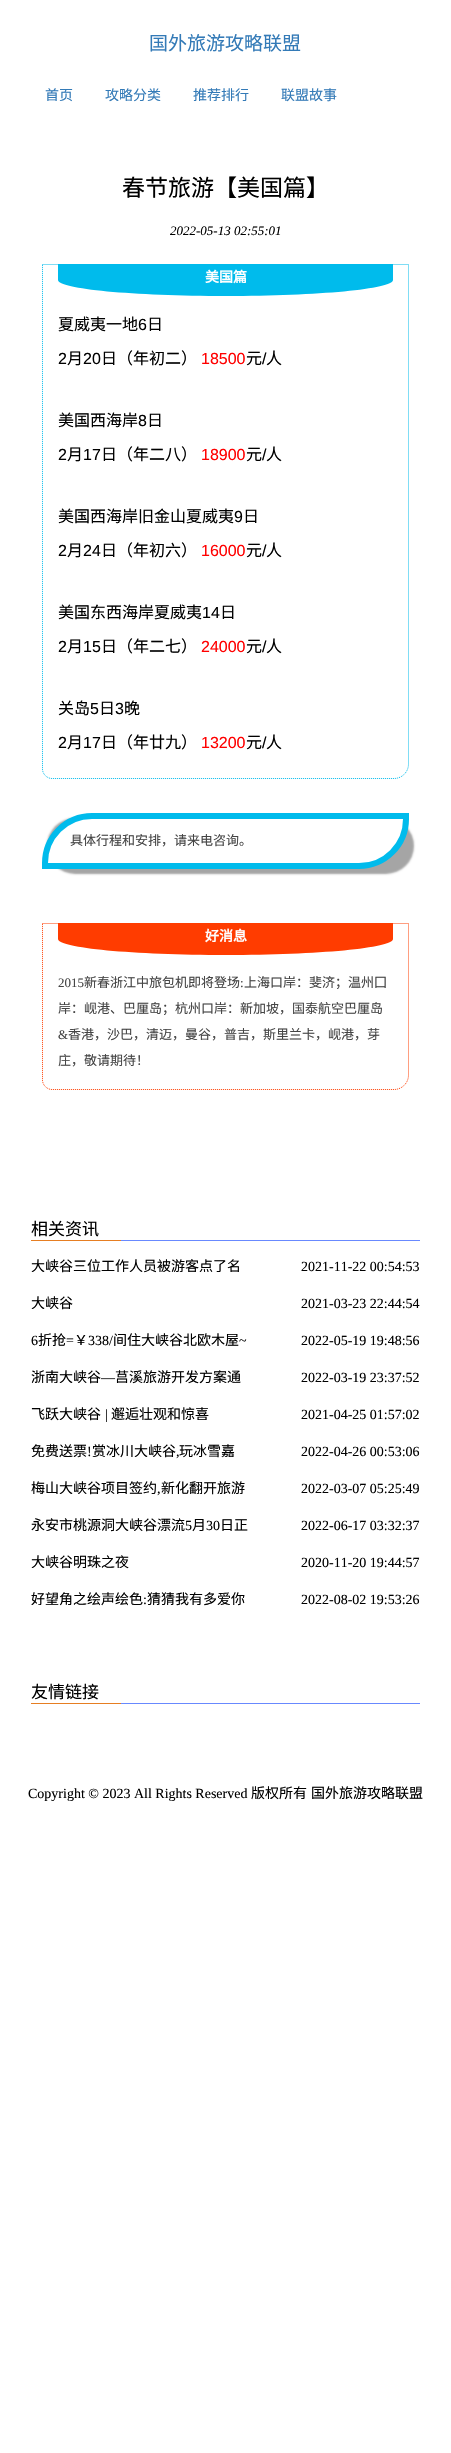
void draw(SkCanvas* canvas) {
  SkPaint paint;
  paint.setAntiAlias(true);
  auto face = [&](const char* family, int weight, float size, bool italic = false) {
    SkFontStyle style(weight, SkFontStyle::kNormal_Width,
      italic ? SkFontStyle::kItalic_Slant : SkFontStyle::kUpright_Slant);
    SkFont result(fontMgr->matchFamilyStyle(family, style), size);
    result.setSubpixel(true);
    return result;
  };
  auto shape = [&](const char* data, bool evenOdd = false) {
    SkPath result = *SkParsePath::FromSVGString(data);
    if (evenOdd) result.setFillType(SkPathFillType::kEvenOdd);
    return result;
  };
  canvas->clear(0xffffffff);
  paint.setStroke(true);
  paint.setStrokeWidth(1);
  paint.setColor(0xff00bbec);
  paint.setPathEffect(SkDashPathEffect::Make({{1, 1}}, 0));
  canvas->drawPath(shape("M42.5 264.5H408.5V764C408.5 772 402 778.5 394 778.5H52C47 778.5 42.5 774 42.5 769Z"), paint);
  paint.setPathEffect(nullptr);
  paint.setStroke(false);
  canvas->drawPath(shape("M58 264H393V280C393 289 318 296 226 296C133 296 58 289 58 280Z"), paint);
  paint.setColor(0xffa5a5a5);
  paint.setMaskFilter(SkMaskFilter::MakeBlur(kNormal_SkBlurStyle, 1));
  canvas->drawRoundRect(SkRect::MakeXYWH(47, 818, 367, 56), 50, 50, paint);
  paint.setMaskFilter(nullptr);
  paint.setColor(0xffffffff);
  canvas->drawPath(shape("M92 816H406V819C406 845 385 866 359 866H45V863C45 837 66 816 92 816Z"), paint);
  paint.setStroke(true);
  paint.setStrokeWidth(6);
  paint.setColor(0xff00bbec);
  canvas->drawPath(shape("M92 816H406V819C406 845 385 866 359 866H45V863C45 837 66 816 92 816Z"), paint);
  paint.setStrokeWidth(1);
  paint.setColor(0xffff3c00);
  paint.setPathEffect(SkDashPathEffect::Make({{1, 1}}, 0));
  canvas->drawPath(shape("M42.5 923.5H408.5V1075C408.5 1083 402 1089.5 394 1089.5H52C47 1089.5 42.5 1085 42.5 1080Z"), paint);
  paint.setPathEffect(nullptr);
  paint.setStroke(false);
  canvas->drawPath(shape("M58 923H393V939C393 948 318 955 226 955C133 955 58 948 58 939Z"), paint);
  {
    const struct { float x, y, w, h; SkColor color; } items[] = {
      {121, 1240, 299, 1, 0xff6889ff},
      {31, 1240, 90, 1, 0xffe67e22},
      {121, 1703, 299, 1, 0xff6889ff},
      {31, 1703, 90, 1, 0xffe67e22},
    };
    for (auto [x, y, w, h, color] : items) {
      paint.setColor(color);
      canvas->drawRect(SkRect::MakeXYWH(x, y, w, h), paint);
    }
  }
  auto f0 = face("Noto Sans CJK SC", 400, 19);
  paint.setColor(0xff337ab7);
  canvas->drawString("国外旅游攻略联盟", 149, 50, f0, paint);
  auto f1 = face("Noto Sans CJK SC", 400, 14);
  {
    const struct { const char* s; float x, y; } items[] = {
      {"首页", 45, 100},
      {"攻略分类", 105, 100},
      {"推荐排行", 193, 100},
      {"联盟故事", 281, 100},
    };
    for (auto [s, x, y] : items) {
      canvas->drawString(s, x, y, f1, paint);
    }
  }
  auto f2 = face("Noto Sans CJK SC", 400, 23);
  paint.setColor(0xff000000);
  canvas->drawString("春节旅游【美国篇】", 122, 196, f2, paint);
  auto f3 = face("Liberation Serif", 400, 13, true);
  canvas->drawString("2022-05-13 02:55:01", 170, 235, f3, paint);
  auto f4 = face("Noto Sans CJK SC", 700, 14);
  paint.setColor(0xffffffff);
  canvas->drawString("美国篇", 205, 282, f4, paint);
  auto f5 = face("Noto Sans CJK SC", 400, 16);
  paint.setColor(0xff000000);
  canvas->drawString("夏威夷一地", 58, 330, f5, paint);
  auto f6 = face("Liberation Sans", 400, 16);
  canvas->drawString("6", 138, 330, f6, paint);
  canvas->drawString("日", 147, 330, f5, paint);
  canvas->drawString("2", 58, 364, f6, paint);
  canvas->drawString("月", 67, 364, f5, paint);
  canvas->drawString("20", 83, 364, f6, paint);
  canvas->drawString("日（年初二）", 101, 364, f5, paint);
  paint.setColor(0xffff0000);
  canvas->drawString("18500", 201, 364, f6, paint);
  paint.setColor(0xff000000);
  canvas->drawString("元", 246, 364, f5, paint);
  canvas->drawString("/", 262, 364, f6, paint);
  canvas->drawString("人", 266, 364, f5, paint);
  canvas->drawString("美国西海岸", 58, 426, f5, paint);
  canvas->drawString("8", 138, 426, f6, paint);
  canvas->drawString("日", 147, 426, f5, paint);
  canvas->drawString("2", 58, 460, f6, paint);
  canvas->drawString("月", 67, 460, f5, paint);
  canvas->drawString("17", 83, 460, f6, paint);
  canvas->drawString("日（年二八）", 101, 460, f5, paint);
  paint.setColor(0xffff0000);
  canvas->drawString("18900", 201, 460, f6, paint);
  paint.setColor(0xff000000);
  canvas->drawString("元", 246, 460, f5, paint);
  canvas->drawString("/", 262, 460, f6, paint);
  canvas->drawString("人", 266, 460, f5, paint);
  canvas->drawString("美国西海岸旧金山夏威夷", 58, 522, f5, paint);
  canvas->drawString("9", 234, 522, f6, paint);
  canvas->drawString("日", 243, 522, f5, paint);
  canvas->drawString("2", 58, 556, f6, paint);
  canvas->drawString("月", 67, 556, f5, paint);
  canvas->drawString("24", 83, 556, f6, paint);
  canvas->drawString("日（年初六）", 101, 556, f5, paint);
  paint.setColor(0xffff0000);
  canvas->drawString("16000", 201, 556, f6, paint);
  paint.setColor(0xff000000);
  canvas->drawString("元", 246, 556, f5, paint);
  canvas->drawString("/", 262, 556, f6, paint);
  canvas->drawString("人", 266, 556, f5, paint);
  canvas->drawString("美国东西海岸夏威夷", 58, 618, f5, paint);
  canvas->drawString("14", 202, 618, f6, paint);
  canvas->drawString("日", 220, 618, f5, paint);
  canvas->drawString("2", 58, 652, f6, paint);
  canvas->drawString("月", 67, 652, f5, paint);
  canvas->drawString("15", 83, 652, f6, paint);
  canvas->drawString("日（年二七）", 101, 652, f5, paint);
  paint.setColor(0xffff0000);
  canvas->drawString("24000", 201, 652, f6, paint);
  paint.setColor(0xff000000);
  canvas->drawString("元", 246, 652, f5, paint);
  canvas->drawString("/", 262, 652, f6, paint);
  canvas->drawString("人", 266, 652, f5, paint);
  canvas->drawString("关岛", 58, 714, f5, paint);
  canvas->drawString("5", 90, 714, f6, paint);
  canvas->drawString("日", 99, 714, f5, paint);
  canvas->drawString("3", 115, 714, f6, paint);
  canvas->drawString("晚", 124, 714, f5, paint);
  canvas->drawString("2", 58, 748, f6, paint);
  canvas->drawString("月", 67, 748, f5, paint);
  canvas->drawString("17", 83, 748, f6, paint);
  canvas->drawString("日（年廿九）", 101, 748, f5, paint);
  paint.setColor(0xffff0000);
  canvas->drawString("13200", 201, 748, f6, paint);
  paint.setColor(0xff000000);
  canvas->drawString("元", 246, 748, f5, paint);
  canvas->drawString("/", 262, 748, f6, paint);
  canvas->drawString("人", 266, 748, f5, paint);
  auto f7 = face("Noto Sans CJK SC", 400, 13);
  paint.setColor(0xff444444);
  canvas->drawString("具体行程和安排，请来电咨询。", 70, 845, f7, paint);
  paint.setColor(0xffffffff);
  canvas->drawString("好消息", 205, 941, f4, paint);
  auto f8 = face("Liberation Serif", 400, 13);
  paint.setColor(0xff444444);
  canvas->drawString("2015", 58, 987, f8, paint);
  canvas->drawString("新春浙江中旅包机即将登场", 84, 987, f7, paint);
  canvas->drawString(":", 240, 987, f8, paint);
  canvas->drawString("上海口岸：斐济；温州囗", 244, 987, f7, paint);
  canvas->drawString("岸：岘港、巴厘岛；杭州口岸：新加坡，国泰航空巴厘岛", 58, 1013, f7, paint);
  canvas->drawString("&", 58, 1039, f8, paint);
  canvas->drawString("香港，沙巴，清迈，曼谷，普吉，斯里兰卡，岘港，芽", 68, 1039, f7, paint);
  canvas->drawString("庄，敬请期待！", 58, 1065, f7, paint);
  auto f9 = face("Noto Sans CJK SC", 400, 17);
  paint.setColor(0xff000000);
  canvas->drawString("相关资讯", 31, 1235, f9, paint);
  canvas->drawString("大峡谷三位工作人员被游客点了名", 31, 1271, f1, paint);
  auto f10 = face("Liberation Serif", 400, 14);
  canvas->drawString("2021-11-22 00:54:53", 301, 1271, f10, paint);
  canvas->drawString("大峡谷", 31, 1308, f1, paint);
  canvas->drawString("2021-03-23 22:44:54", 301, 1308, f10, paint);
  canvas->drawString("6", 31, 1345, f10, paint);
  canvas->drawString("折抢", 38, 1345, f1, paint);
  canvas->drawString("=", 66, 1345, f10, paint);
  canvas->drawString("￥", 74, 1345, f1, paint);
  canvas->drawString("338/", 88, 1345, f10, paint);
  canvas->drawString("间住大峡谷北欧木屋", 113, 1345, f1, paint);
  canvas->drawString("~", 239, 1345, f10, paint);
  canvas->drawString("2022-05-19 19:48:56", 301, 1345, f10, paint);
  canvas->drawString("浙南大峡谷", 31, 1382, f1, paint);
  canvas->drawString("—", 101, 1382, f10, paint);
  canvas->drawString("莒溪旅游开发方案通", 115, 1382, f1, paint);
  canvas->drawString("2022-03-19 23:37:52", 301, 1382, f10, paint);
  canvas->drawString("飞跃大峡谷", 31, 1419, f1, paint);
  canvas->drawString("|", 105, 1419, f10, paint);
  canvas->drawString("邂逅壮观和惊喜", 111, 1419, f1, paint);
  canvas->drawString("2021-04-25 01:57:02", 301, 1419, f10, paint);
  canvas->drawString("免费送票", 31, 1456, f1, paint);
  canvas->drawString("!", 87, 1456, f10, paint);
  canvas->drawString("赏冰川大峡谷", 92, 1456, f1, paint);
  canvas->drawString(",", 176, 1456, f10, paint);
  canvas->drawString("玩冰雪嘉", 179, 1456, f1, paint);
  canvas->drawString("2022-04-26 00:53:06", 301, 1456, f10, paint);
  canvas->drawString("梅山大峡谷项目签约", 31, 1493, f1, paint);
  canvas->drawString(",", 157, 1493, f10, paint);
  canvas->drawString("新化翻开旅游", 161, 1493, f1, paint);
  canvas->drawString("2022-03-07 05:25:49", 301, 1493, f10, paint);
  canvas->drawString("永安市桃源洞大峡谷漂流", 31, 1530, f1, paint);
  canvas->drawString("5", 185, 1530, f10, paint);
  canvas->drawString("月", 192, 1530, f1, paint);
  canvas->drawString("30", 206, 1530, f10, paint);
  canvas->drawString("日正", 220, 1530, f1, paint);
  canvas->drawString("2022-06-17 03:32:37", 301, 1530, f10, paint);
  canvas->drawString("大峡谷明珠之夜", 31, 1567, f1, paint);
  canvas->drawString("2020-11-20 19:44:57", 301, 1567, f10, paint);
  canvas->drawString("好望角之绘声绘色", 31, 1604, f1, paint);
  canvas->drawString(":", 143, 1604, f10, paint);
  canvas->drawString("猜猜我有多爱你", 147, 1604, f1, paint);
  canvas->drawString("2022-08-02 19:53:26", 301, 1604, f10, paint);
  canvas->drawString("友情链接", 31, 1698, f9, paint);
  canvas->drawString("Copyright © 2023 All Rights Reserved", 28, 1798, f10, paint);
  canvas->drawString("版权所有", 251, 1798, f1, paint);
  canvas->drawString("国外旅游攻略联盟", 311, 1798, f1, paint);
}
